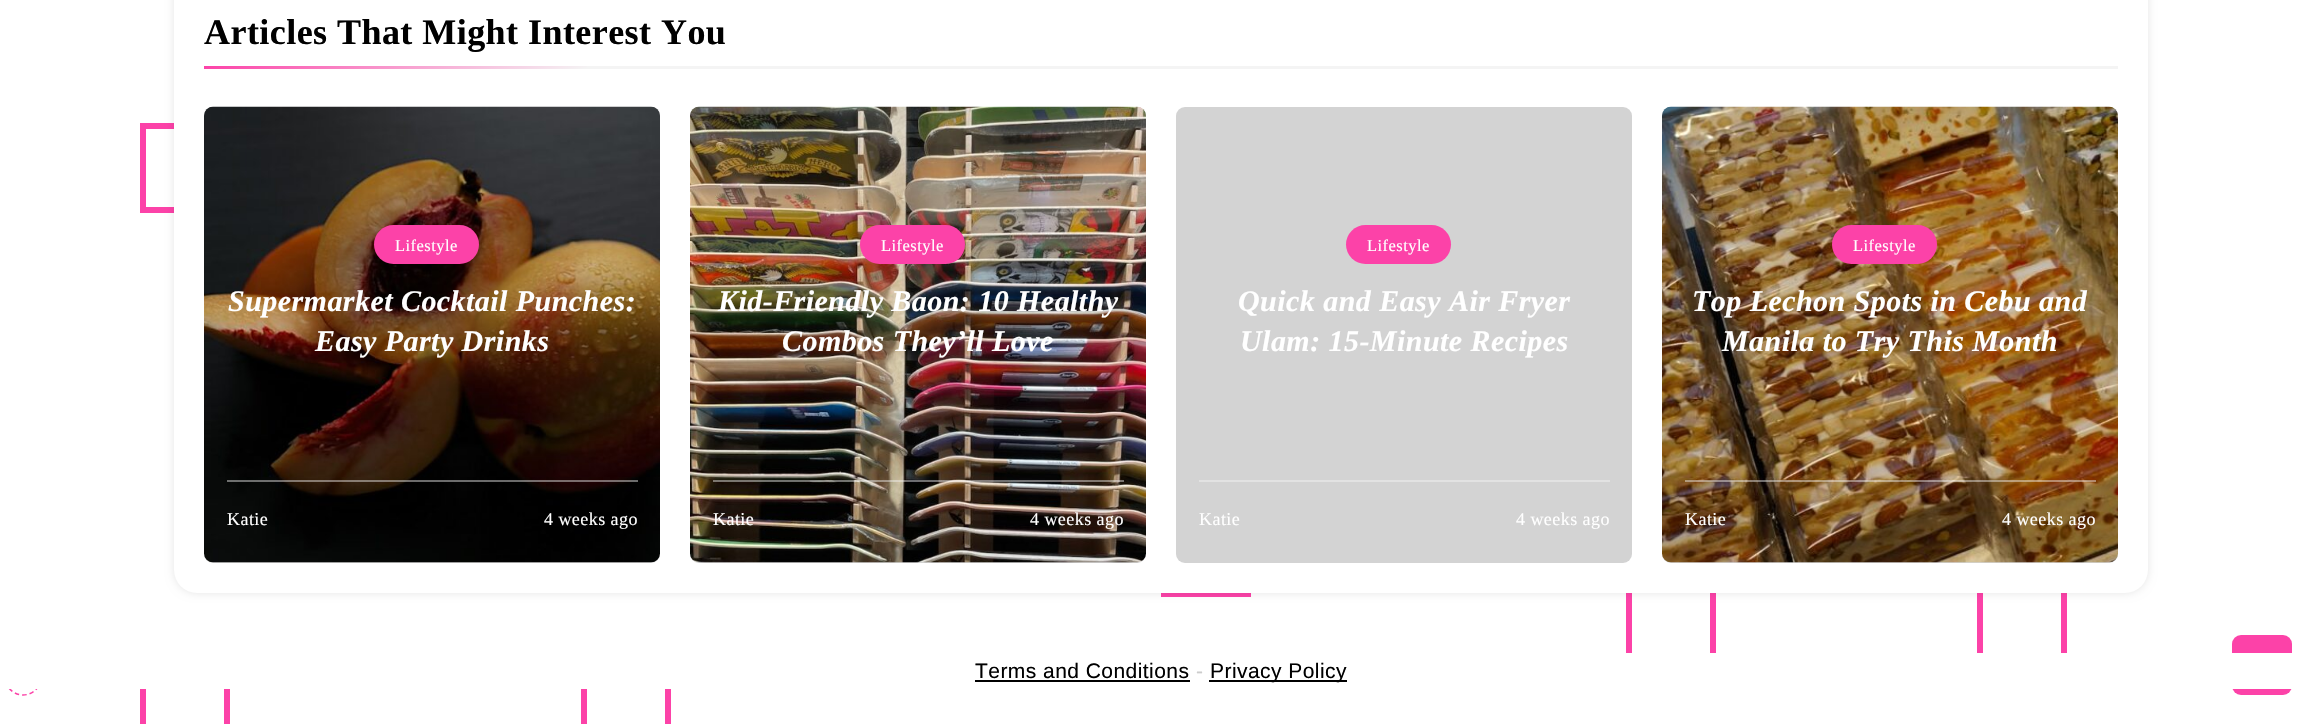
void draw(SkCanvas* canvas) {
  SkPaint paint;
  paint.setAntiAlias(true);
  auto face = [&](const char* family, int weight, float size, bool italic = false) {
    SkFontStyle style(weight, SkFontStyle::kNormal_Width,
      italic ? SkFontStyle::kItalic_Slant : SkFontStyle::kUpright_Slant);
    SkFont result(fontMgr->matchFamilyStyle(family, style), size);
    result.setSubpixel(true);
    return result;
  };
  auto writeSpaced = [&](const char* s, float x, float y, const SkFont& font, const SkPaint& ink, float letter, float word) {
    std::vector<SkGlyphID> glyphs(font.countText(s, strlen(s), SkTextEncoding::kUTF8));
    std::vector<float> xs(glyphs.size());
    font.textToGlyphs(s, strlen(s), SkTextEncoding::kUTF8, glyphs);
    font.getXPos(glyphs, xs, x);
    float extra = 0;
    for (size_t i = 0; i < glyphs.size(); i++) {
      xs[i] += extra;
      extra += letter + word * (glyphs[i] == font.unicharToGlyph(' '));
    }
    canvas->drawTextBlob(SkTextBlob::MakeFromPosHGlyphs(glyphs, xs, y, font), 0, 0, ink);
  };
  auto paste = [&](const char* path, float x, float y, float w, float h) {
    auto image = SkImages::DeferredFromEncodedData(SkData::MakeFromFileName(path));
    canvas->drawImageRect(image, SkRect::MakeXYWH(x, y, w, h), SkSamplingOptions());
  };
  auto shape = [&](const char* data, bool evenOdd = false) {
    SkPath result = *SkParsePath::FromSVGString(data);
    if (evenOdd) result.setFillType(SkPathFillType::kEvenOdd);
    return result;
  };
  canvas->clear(0xffffffff);
  paint.setStroke(true);
  paint.setStrokeWidth(6);
  paint.setColor(0xfffc42a8);
  canvas->drawRect(SkRect::MakeXYWH(143, 126, 84, 84), paint);
  canvas->drawRect(SkRect::MakeXYWH(1164, 510, 84, 84), paint);
  canvas->drawRect(SkRect::MakeXYWH(1629, 582, 84, 84), paint);
  canvas->drawRect(SkRect::MakeXYWH(1980, 582, 84, 84), paint);
  paint.setStroke(false);
  paint.setColor(0x1a000000);
  paint.setMaskFilter(SkMaskFilter::MakeBlur(kNormal_SkBlurStyle, 4.5f));
  canvas->drawRoundRect(SkRect::MakeXYWH(174, -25, 1974, 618), 23, 23, paint);
  paint.setMaskFilter(nullptr);
  paint.setColor(0xffffffff);
  canvas->drawRoundRect(SkRect::MakeXYWH(174, -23, 1974, 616), 23, 23, paint);
  paint.setColor(0xfff4f4f4);
  canvas->drawRect(SkRect::MakeXYWH(587, 66, 1531, 3), paint);
  {
    const SkColor colors[] = {0xfffc42a8, 0xfff4f4f4};
    const float stops[] = {0, 1};
    const SkPoint ends[] = {{372, 4.7f}, {418, 130}};
    paint.setShader(SkGradientShader::MakeLinear(ends, colors, stops, 2, SkTileMode::kClamp));
    paint.setAlpha(255);
  }
  canvas->drawRect(SkRect::MakeXYWH(204, 66, 383, 3), paint);
  paint.setShader(nullptr);
  paint.setColor(0xffd3d3d3);
  canvas->drawRoundRect(SkRect::MakeXYWH(204, 107, 456, 456), 9, 9, paint);
  paste("img/1.png", 204, 106, 456, 457);
  paint.setColor(0xfffc42a8);
  canvas->drawRoundRect(SkRect::MakeXYWH(374, 225, 105, 39), 19.5f, 19.5f, paint);
  paint.setColor(0x70f4f4f4);
  canvas->drawRect(SkRect::MakeXYWH(227, 480, 411, 2), paint);
  paint.setColor(0xffd3d3d3);
  canvas->drawRoundRect(SkRect::MakeXYWH(690, 107, 456, 456), 9, 9, paint);
  paste("img/2.png", 690, 106, 456, 457);
  paint.setColor(0xfffc42a8);
  canvas->drawRoundRect(SkRect::MakeXYWH(860, 225, 105, 39), 19.5f, 19.5f, paint);
  paint.setColor(0x70f4f4f4);
  canvas->drawRect(SkRect::MakeXYWH(713, 480, 411, 2), paint);
  paint.setColor(0xffd3d3d3);
  canvas->drawRoundRect(SkRect::MakeXYWH(1176, 107, 456, 456), 9, 9, paint);
  paint.setColor(0xfffc42a8);
  canvas->drawRoundRect(SkRect::MakeXYWH(1346, 225, 105, 39), 19.5f, 19.5f, paint);
  paint.setColor(0xffe2e2e2);
  canvas->drawRect(SkRect::MakeXYWH(1199, 480, 411, 2), paint);
  paint.setColor(0xffd3d3d3);
  canvas->drawRoundRect(SkRect::MakeXYWH(1662, 107, 456, 456), 9, 9, paint);
  paste("img/3.png", 1662, 106, 456, 457);
  paint.setColor(0xfffc42a8);
  canvas->drawRoundRect(SkRect::MakeXYWH(1832, 225, 105, 39), 19.5f, 19.5f, paint);
  paint.setColor(0x70f4f4f4);
  canvas->drawRect(SkRect::MakeXYWH(1685, 480, 411, 2), paint);
  paint.setStroke(true);
  paint.setStrokeWidth(1.5f);
  paint.setColor(0xfffc42a8);
  paint.setPathEffect(SkDashPathEffect::Make({{4.5f, 3}}, 0));
  canvas->drawPath(shape("M23 659C33 659 41 667.5 41 677C41 687 33 695 23 695C13.5 695 5 687 5 677C5 667.5 13.5 659 23 659Z"), paint);
  paint.setPathEffect(nullptr);
  paint.setStrokeWidth(6);
  canvas->drawRect(SkRect::MakeXYWH(143, 663, 84, 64), paint);
  canvas->drawRect(SkRect::MakeXYWH(584, 656, 84, 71), paint);
  paint.setStroke(false);
  canvas->drawRoundRect(SkRect::MakeXYWH(2232, 635, 60, 60), 9, 9, paint);
  {
    const struct { float x, y, w, h; SkColor color; } items[] = {
      {4, 653, 2288, 36, 0xffffffff},
      {975, 680, 215, 2, 0xff000000},
      {1209, 680, 138, 2, 0xff000000},
    };
    for (auto [x, y, w, h, color] : items) {
      paint.setColor(color);
      canvas->drawRect(SkRect::MakeXYWH(x, y, w, h), paint);
    }
  }
  auto f0 = face("Liberation Serif", 700, 36);
  writeSpaced("Articles That Might Interest You", 204, 44, f0, paint, 0.45f, 0);
  auto f1 = face("Liberation Serif", 400, 16.5f);
  paint.setColor(0xffffffff);
  writeSpaced("Lifestyle", 395, 251, f1, paint, 0.45f, 0);
  auto f2 = face("Liberation Serif", 700, 30, true);
  writeSpaced("Supermarket Cocktail Punches:", 228, 311, f2, paint, 0.45f, 0);
  writeSpaced("Easy Party Drinks", 315, 351, f2, paint, 0.45f, 0);
  auto f3 = face("Liberation Serif", 400, 18);
  writeSpaced("Katie", 227, 525, f3, paint, 0.45f, 0);
  writeSpaced("4 weeks ago", 544, 525, f3, paint, 0.45f, 0);
  writeSpaced("Lifestyle", 881, 251, f1, paint, 0.45f, 0);
  writeSpaced("Kid-Friendly Baon: 10 Healthy", 718, 311, f2, paint, 0.45f, 0);
  writeSpaced("Combos They’ll Love", 782, 351, f2, paint, 0.45f, 0);
  writeSpaced("Katie", 713, 525, f3, paint, 0.45f, 0);
  writeSpaced("4 weeks ago", 1030, 525, f3, paint, 0.45f, 0);
  writeSpaced("Lifestyle", 1367, 251, f1, paint, 0.45f, 0);
  writeSpaced("Quick and Easy Air Fryer", 1238, 311, f2, paint, 0.45f, 0);
  writeSpaced("Ulam: 15-Minute Recipes", 1240, 351, f2, paint, 0.45f, 0);
  writeSpaced("Katie", 1199, 525, f3, paint, 0.45f, 0);
  writeSpaced("4 weeks ago", 1516, 525, f3, paint, 0.45f, 0);
  writeSpaced("Lifestyle", 1853, 251, f1, paint, 0.45f, 0);
  writeSpaced("Top Lechon Spots in Cebu and", 1692, 311, f2, paint, 0.45f, 0);
  writeSpaced("Manila to Try This Month", 1722, 351, f2, paint, 0.45f, 0);
  writeSpaced("Katie", 1685, 525, f3, paint, 0.45f, 0);
  writeSpaced("4 weeks ago", 2002, 525, f3, paint, 0.45f, 0);
  auto f4 = face("Liberation Sans", 400, 21);
  paint.setColor(0xff000000);
  writeSpaced("Terms and Conditions", 975, 678, f4, paint, 0.45f, 0);
  paint.setColor(0xffcccccc);
  writeSpaced("-", 1196, 678, f4, paint, 0.45f, 0);
  paint.setColor(0xff000000);
  writeSpaced("Privacy Policy", 1210, 678, f4, paint, 0.45f, 0);
}
